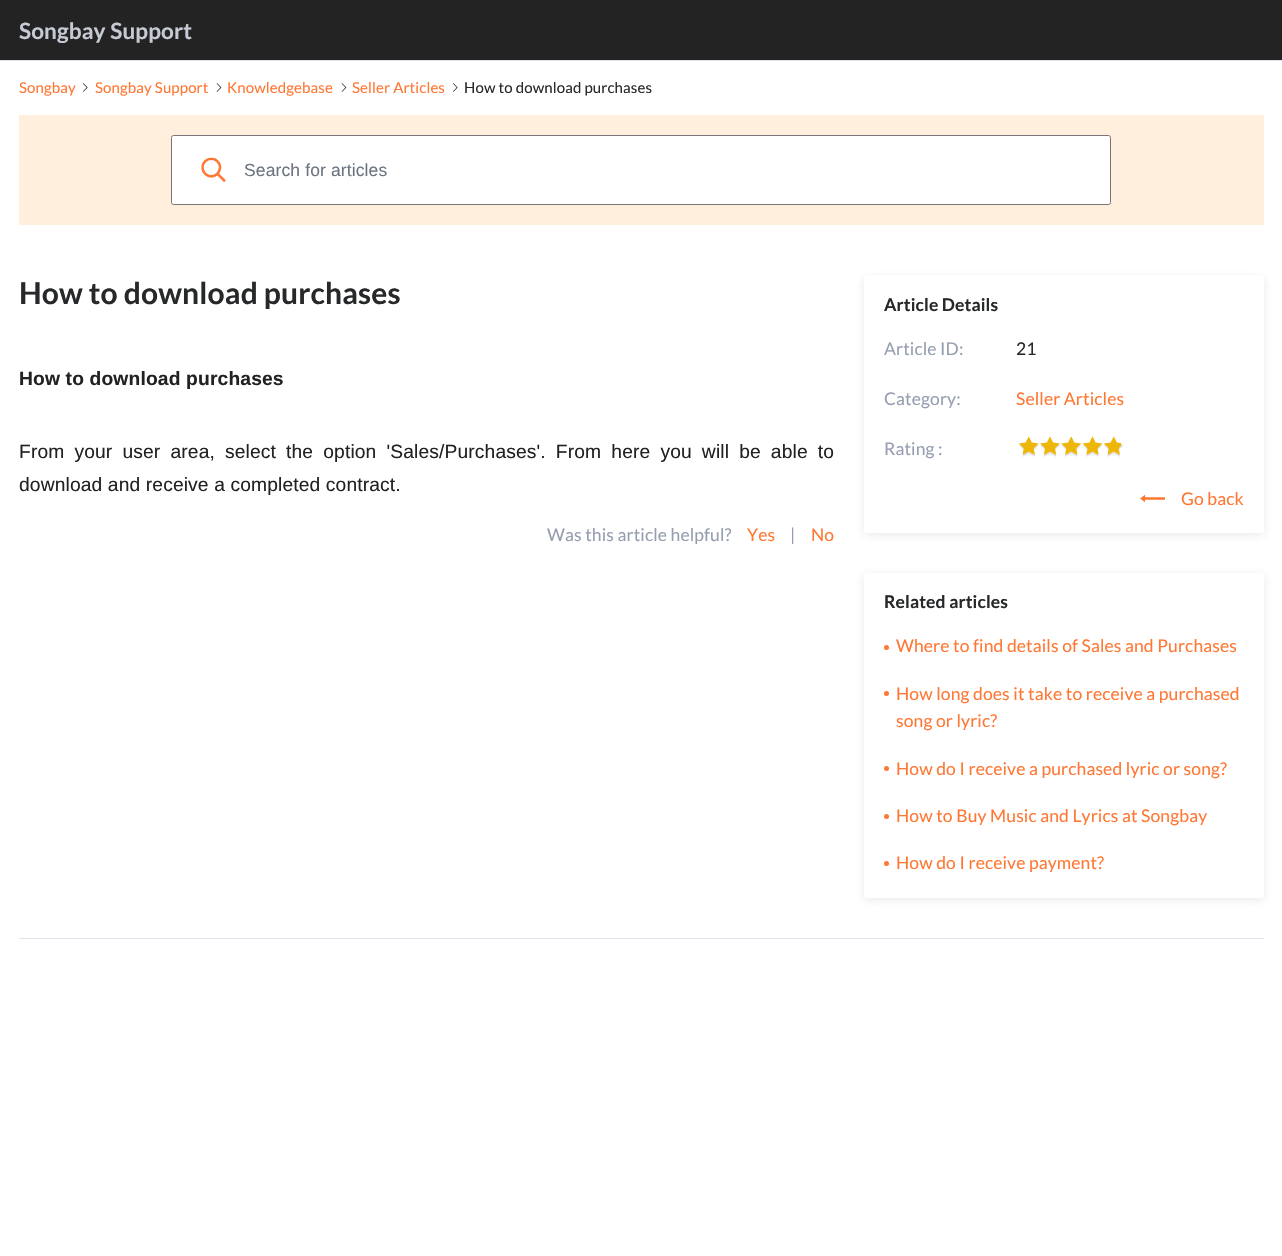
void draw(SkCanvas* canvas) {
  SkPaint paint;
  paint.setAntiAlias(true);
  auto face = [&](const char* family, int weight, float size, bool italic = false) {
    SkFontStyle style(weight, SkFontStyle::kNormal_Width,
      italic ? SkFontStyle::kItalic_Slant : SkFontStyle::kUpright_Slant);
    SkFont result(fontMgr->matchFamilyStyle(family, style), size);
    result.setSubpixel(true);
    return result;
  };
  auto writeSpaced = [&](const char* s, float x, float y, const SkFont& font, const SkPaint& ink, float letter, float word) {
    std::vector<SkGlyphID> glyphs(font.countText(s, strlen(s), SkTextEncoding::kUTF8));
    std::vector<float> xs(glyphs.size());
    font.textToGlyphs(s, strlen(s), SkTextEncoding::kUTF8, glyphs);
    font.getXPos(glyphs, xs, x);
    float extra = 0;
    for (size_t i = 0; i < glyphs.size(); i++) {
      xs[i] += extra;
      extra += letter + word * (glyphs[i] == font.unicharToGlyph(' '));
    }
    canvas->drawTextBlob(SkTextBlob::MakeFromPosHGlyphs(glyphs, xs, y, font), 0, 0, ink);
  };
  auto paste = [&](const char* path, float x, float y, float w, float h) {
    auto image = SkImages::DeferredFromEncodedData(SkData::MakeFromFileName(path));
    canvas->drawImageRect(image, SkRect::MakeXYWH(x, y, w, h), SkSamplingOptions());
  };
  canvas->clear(0xffffffff);
  paint.setColor(0xff232323);
  canvas->drawRect(SkRect::MakeXYWH(0, 0, 1282, 60), paint);
  paint.setColor(0xffdfe4ec);
  canvas->drawRect(SkRect::MakeXYWH(0, 60, 1282, 1), paint);
  paste("img/1.png", 83, 83, 5, 9);
  paste("img/2.png", 216, 83, 6, 9);
  paste("img/2.png", 341, 83, 6, 9);
  paste("img/1.png", 453, 83, 5, 9);
  paint.setColor(0xffffefdc);
  canvas->drawRect(SkRect::MakeXYWH(19, 115, 1245, 110), paint);
  paint.setColor(0xffffffff);
  canvas->drawRoundRect(SkRect::MakeXYWH(171.5f, 135.5f, 939, 69), 2, 2, paint);
  paint.setStroke(true);
  paint.setStrokeWidth(1);
  paint.setColor(0xff767676);
  canvas->drawRoundRect(SkRect::MakeXYWH(171.5f, 135.5f, 939, 69), 2, 2, paint);
  paste("img/3.png", 201, 157, 25, 26);
  paint.setStroke(false);
  paint.setColor(0x1a26282a);
  paint.setMaskFilter(SkMaskFilter::MakeBlur(kNormal_SkBlurStyle, 5));
  canvas->drawRoundRect(SkRect::MakeXYWH(864, 278, 400, 257), 2.5f, 2.5f, paint);
  paint.setMaskFilter(nullptr);
  paint.setColor(0xffffffff);
  canvas->drawRoundRect(SkRect::MakeXYWH(864, 275, 400, 258), 2.5f, 2.5f, paint);
  paste("img/5.png", 1019, 442, 105, 15);
  paste("img/4.png", 1019, 436, 103, 19);
  paste("img/6.png", 1140, 494, 25, 9);
  paint.setColor(0x1a26282a);
  paint.setMaskFilter(SkMaskFilter::MakeBlur(kNormal_SkBlurStyle, 5));
  canvas->drawRoundRect(SkRect::MakeXYWH(864, 575, 400, 325), 2.5f, 2.5f, paint);
  paint.setMaskFilter(nullptr);
  paint.setColor(0xffffffff);
  canvas->drawRoundRect(SkRect::MakeXYWH(864, 573, 400, 325), 2.5f, 2.5f, paint);
  paint.setColor(0xffff7733);
  canvas->drawCircle(886.5f, 647.5f, 2.5f, paint);
  canvas->drawCircle(886.5f, 693.5f, 2.5f, paint);
  canvas->drawCircle(886.5f, 768.5f, 2.5f, paint);
  canvas->drawCircle(886.5f, 816.5f, 2.5f, paint);
  canvas->drawCircle(886.5f, 863.5f, 2.5f, paint);
  paint.setColor(0xffdfe4ec);
  canvas->drawRect(SkRect::MakeXYWH(19, 938, 1245, 1), paint);
  auto f0 = face("Lato", 700, 22.5f);
  paint.setColor(0xffc5cad4);
  writeSpaced("Songbay Support", 19, 39, f0, paint, 0.12f, 0);
  auto f1 = face("Lato", 400, 15);
  paint.setColor(0xffff7733);
  {
    const struct { const char* s; float x, y; } items[] = {
      {"Songbay", 19, 93},
      {"Songbay Support", 95, 93},
      {"Knowledgebase", 227, 93},
      {"Seller Articles", 352, 93},
    };
    for (auto [s, x, y] : items) {
      writeSpaced(s, x, y, f1, paint, 0.12f, 0);
    }
  }
  paint.setColor(0xff26282a);
  writeSpaced("How to download purchases", 464, 93, f1, paint, 0.12f, 0);
  auto f2 = face("Liberation Sans", 400, 17.5f);
  paint.setColor(0xff6b7480);
  writeSpaced("Search for articles", 244, 176, f2, paint, 0.12f, 0);
  auto f3 = face("Lato", 700, 30);
  paint.setColor(0xff26282a);
  writeSpaced("How to download purchases", 19, 304, f3, paint, 0.15f, 0);
  auto f4 = face("Liberation Sans", 700, 19.25f);
  paint.setColor(0xff222222);
  writeSpaced("How to download purchases", 19, 385, f4, paint, 0.15f, 0);
  auto f5 = face("Liberation Sans", 400, 19.25f);
  writeSpaced("From your user area, select the option 'Sales/Purchases'. From here you will be able to", 19, 458, f5, paint, 0.12f, 4.6f);
  writeSpaced("download and receive a completed contract.", 19, 491, f5, paint, 0.12f, 0);
  auto f6 = face("Lato", 400, 17.5f);
  paint.setColor(0xff959eb0);
  writeSpaced("Was this article helpful?", 547, 541, f6, paint, 0.12f, 0);
  paint.setColor(0xffff7733);
  writeSpaced("Yes", 747, 541, f6, paint, 0.12f, 0);
  paint.setColor(0xff959eb0);
  writeSpaced("|", 790, 541, f6, paint, 0.12f, 0);
  paint.setColor(0xffff7733);
  writeSpaced("No", 811, 541, f6, paint, 0.12f, 0);
  auto f7 = face("Lato", 700, 17.5f);
  paint.setColor(0xff26282a);
  writeSpaced("Article Details", 884, 311, f7, paint, 0.12f, 0);
  paint.setColor(0xff959eb0);
  writeSpaced("Article ID:", 884, 355, f6, paint, 0.12f, 0);
  paint.setColor(0xff26282a);
  writeSpaced("21", 1016, 355, f6, paint, 0.12f, 0);
  paint.setColor(0xff959eb0);
  writeSpaced("Category:", 884, 405, f6, paint, 0.12f, 0);
  paint.setColor(0xffff7733);
  writeSpaced("Seller Articles", 1016, 405, f6, paint, 0.12f, 0);
  paint.setColor(0xff959eb0);
  writeSpaced("Rating :", 884, 455, f6, paint, 0.12f, 0);
  paint.setColor(0xffff7733);
  writeSpaced("Go back", 1181, 505, f6, paint, 0.12f, 0);
  paint.setColor(0xff26282a);
  writeSpaced("Related articles", 884, 608, f7, paint, 0.12f, 0);
  paint.setColor(0xffff7733);
  {
    const struct { const char* s; float x, y; } items[] = {
      {"Where to find details of Sales and Purchases", 896, 652},
      {"How long does it take to receive a purchased", 896, 700},
      {"song or lyric?", 896, 727},
      {"How do I receive a purchased lyric or song?", 896, 775},
      {"How to Buy Music and Lyrics at Songbay", 896, 822},
      {"How do I receive payment?", 896, 869},
    };
    for (auto [s, x, y] : items) {
      writeSpaced(s, x, y, f6, paint, 0.12f, 0);
    }
  }
}
